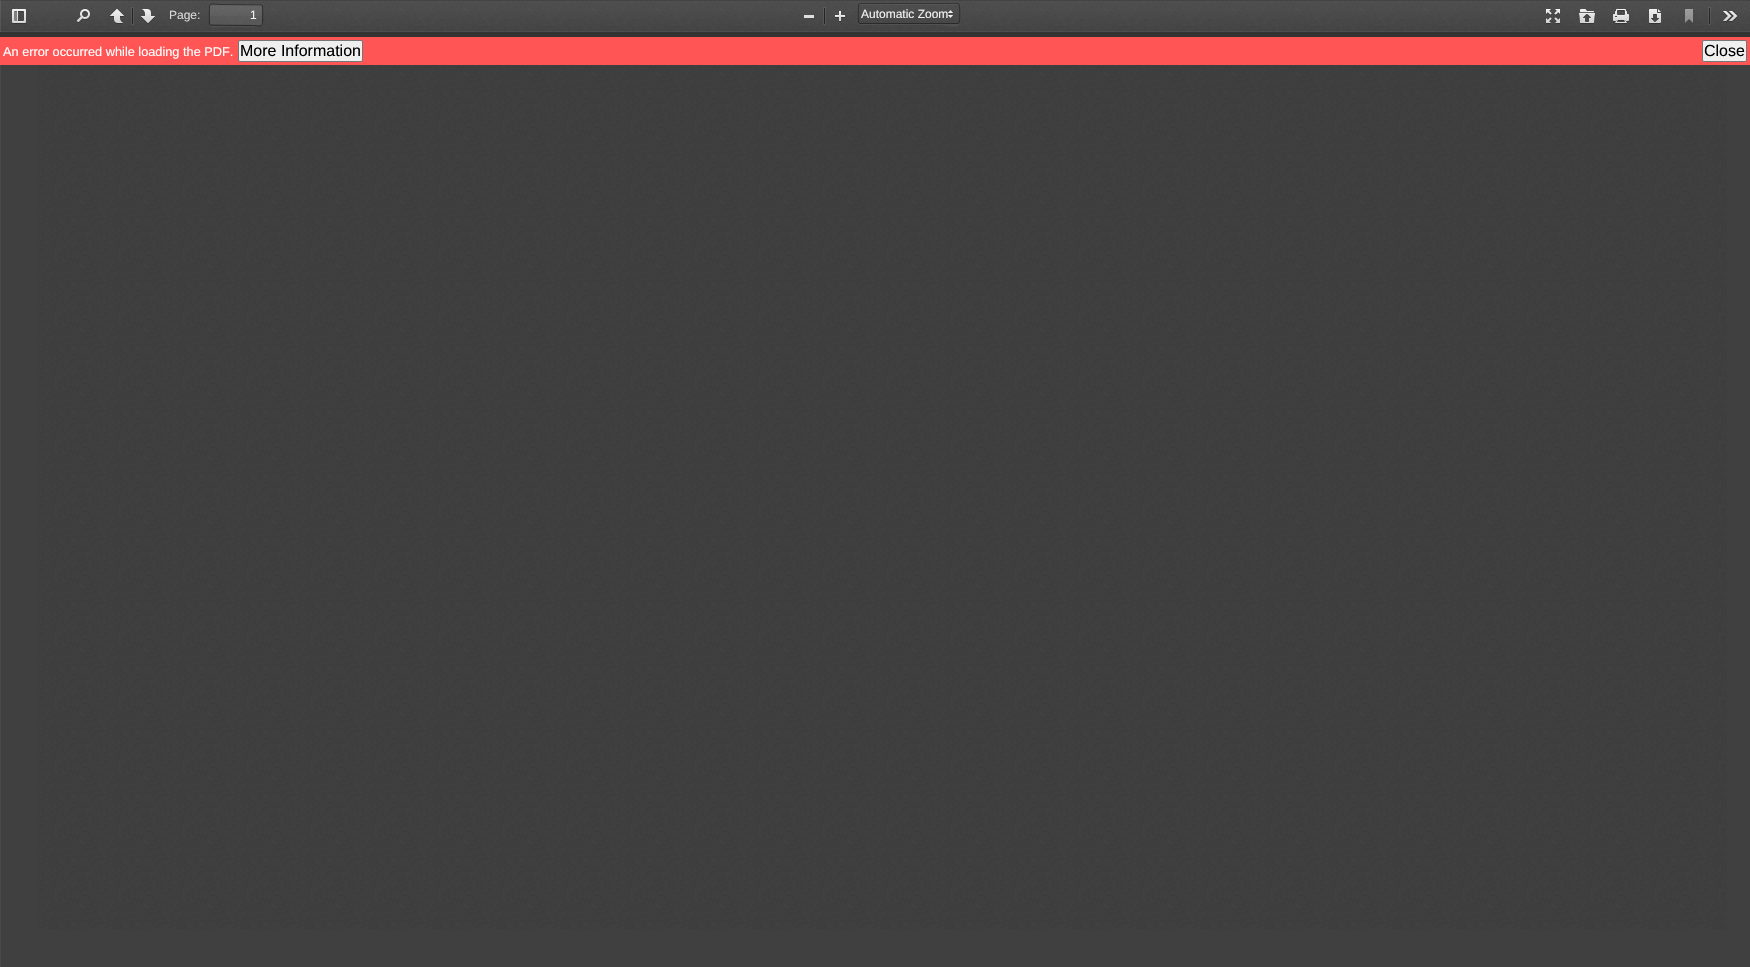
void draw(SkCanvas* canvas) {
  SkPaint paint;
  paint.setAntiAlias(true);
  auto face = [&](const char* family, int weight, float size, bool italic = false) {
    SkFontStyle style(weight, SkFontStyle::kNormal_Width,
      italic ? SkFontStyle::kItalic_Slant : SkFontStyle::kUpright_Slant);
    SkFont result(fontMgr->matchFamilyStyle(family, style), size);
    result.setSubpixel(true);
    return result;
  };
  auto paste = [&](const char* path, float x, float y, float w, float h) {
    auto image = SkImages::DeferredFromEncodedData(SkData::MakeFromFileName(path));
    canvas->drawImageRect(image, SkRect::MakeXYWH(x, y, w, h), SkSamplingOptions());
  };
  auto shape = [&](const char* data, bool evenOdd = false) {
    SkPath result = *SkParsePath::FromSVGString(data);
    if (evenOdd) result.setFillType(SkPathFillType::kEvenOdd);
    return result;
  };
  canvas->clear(0xff404040);
  paste("img/1.png", 38, 17, 1689, 912);
  paste("img/2.png", 0, 0, 1750, 32);
  {
    const struct { float x, y, w, h; SkColor color; } items[] = {
      {0, 31, 1750, 1, 0x0dffffff},
      {0, 0, 1750, 1, 0x26000000},
      {0, 0, 1, 32, 0x14ffffff},
    };
    for (auto [x, y, w, h, color] : items) {
      paint.setColor(color);
      canvas->drawRect(SkRect::MakeXYWH(x, y, w, h), paint);
    }
  }
  paste("img/3.png", 12, 9, 14, 15);
  paste("img/4.png", 77, 9, 13, 14);
  paste("img/5.png", 110, 9, 14, 15);
  paint.setStroke(true);
  paint.setStrokeWidth(1);
  canvas->drawRect(SkRect::MakeXYWH(131.5f, 7.5f, 2, 17), paint);
  paint.setStroke(false);
  paint.setColor(0x80000000);
  canvas->drawRect(SkRect::MakeXYWH(132, 8, 1, 16), paint);
  paste("img/6.png", 141, 9, 14, 15);
  paint.setColor(0x0dffffff);
  canvas->drawPath(shape("M209 24C209 29 215 27 219 27H253C257 27 263 29 263 24L262 26H210Z"), paint);
  paint.setColor(0x17ffffff);
  canvas->drawRect(SkRect::MakeXYWH(210, 5, 52, 20), paint);
  {
    const SkColor colors[] = {0x0dffffff, 0x00ffffff};
    const float stops[] = {0, 1};
    const SkPoint ends[] = {{236, 5}, {236, 25}};
    paint.setShader(SkGradientShader::MakeLinear(ends, colors, stops, 2, SkTileMode::kClamp));
    paint.setAlpha(255);
  }
  canvas->drawRect(SkRect::MakeXYWH(210, 5, 52, 11), paint);
  paint.setShader(nullptr);
  paint.setColor(0x0d000000);
  canvas->drawPath(shape("M211 6H261C262 6 262 6 262 7C262 3 257 5 253 5H219C215 5 210 3 210 7C210 6 210 6 211 6Z"), paint);
  paint.setStroke(true);
  paint.setColor(0x52000000);
  canvas->drawPath(shape("M210 5C212 2.5 216 4.5 219.5 4.5L262 5"), paint);
  paint.setColor(0x61000000);
  canvas->drawPath(shape("M262 5C263 5.5 263 24.5 262 25"), paint);
  paint.setColor(0x6b000000);
  canvas->drawPath(shape("M262 25C260 27.5 256 25.5 252.5 25.5L210 25"), paint);
  paint.setColor(0x61000000);
  canvas->drawPath(shape("M210 25C209 24.5 209 5.5 210 5"), paint);
  paint.setStroke(false);
  paint.setColor(0xd1ffffff);
  canvas->drawRect(SkRect::MakeXYWH(804, 15, 10, 3), paint);
  paint.setStroke(true);
  paint.setColor(0x14ffffff);
  canvas->drawRect(SkRect::MakeXYWH(823.5f, 7.5f, 2, 17), paint);
  paint.setStroke(false);
  paint.setColor(0x80000000);
  canvas->drawRect(SkRect::MakeXYWH(824, 8, 1, 16), paint);
  paste("img/7.png", 835, 11, 10, 11);
  paint.setColor(0x0dffffff);
  canvas->drawPath(shape("M858 22C858 23 858 25 860 25H942C943 25 960 30 960 22V23L958 24H860C859 24 858 23 858 22Z"), paint);
  paste("img/8.png", 948, 10, 5, 8);
  canvas->drawPath(shape("M860 5H958C959 5 959 5 959 6C959 5 959 4 958 4H860C859 4 859 5 859 6C859 5 859 5 860 5Z"), paint);
  paint.setStroke(true);
  paint.setColor(0x52000000);
  canvas->drawPath(shape("M859 4L860 3.5H958L959 4"), paint);
  paint.setColor(0x61000000);
  canvas->drawPath(shape("M959 4C960 4.5 960 22.5 959 23"), paint);
  paint.setColor(0x6b000000);
  canvas->drawPath(shape("M959 23L958 23.5H860L859 23"), paint);
  paint.setColor(0x61000000);
  canvas->drawPath(shape("M859 23C858 22.5 858 4.5 859 4"), paint);
  paste("img/9.png", 1546, 9, 14, 15);
  paste("img/10.png", 1579, 9, 16, 15);
  paste("img/11.png", 1613, 9, 16, 15);
  paste("img/12.png", 1649, 9, 12, 15);
  paste("img/13.png", 1685, 9, 8, 15);
  paint.setColor(0x14ffffff);
  canvas->drawRect(SkRect::MakeXYWH(1708.5f, 7.5f, 2, 17), paint);
  paint.setStroke(false);
  paint.setColor(0x80000000);
  canvas->drawRect(SkRect::MakeXYWH(1709, 8, 1, 16), paint);
  paste("img/14.png", 1723, 11, 15, 11);
  paint.setColor(0xff333333);
  canvas->drawRect(SkRect::MakeXYWH(0, 32, 1750, 5), paint);
  paint.setColor(0xffff5555);
  canvas->drawRect(SkRect::MakeXYWH(0, 37, 1750, 28), paint);
  paint.setColor(0xffefefef);
  canvas->drawRoundRect(SkRect::MakeXYWH(238.5f, 40.5f, 124, 21), 1.5f, 1.5f, paint);
  paint.setStroke(true);
  paint.setColor(0xff767676);
  canvas->drawRoundRect(SkRect::MakeXYWH(238.5f, 40.5f, 124, 21), 1.5f, 1.5f, paint);
  paint.setStroke(false);
  paint.setColor(0xffefefef);
  canvas->drawRoundRect(SkRect::MakeXYWH(1702.5f, 40.5f, 44, 21), 1.5f, 1.5f, paint);
  paint.setStroke(true);
  paint.setColor(0xff767676);
  canvas->drawRoundRect(SkRect::MakeXYWH(1702.5f, 40.5f, 44, 21), 1.5f, 1.5f, paint);
  paint.setStroke(false);
  paint.setColor(0xff4a4a4a);
  canvas->drawRect(SkRect::MakeXYWH(0, 65, 1, 902), paint);
  auto f0 = face("Liberation Sans", 400, 12);
  paint.setColor(0xffd9d9d9);
  canvas->drawString("Page:", 169, 19, f0, paint);
  paint.setColor(0xfff2f2f2);
  canvas->drawString("1", 250, 19, f0, paint);
  canvas->drawString("Automatic Zoom", 861, 18, f0, paint);
  auto f1 = face("Liberation Sans", 400, 12.75f);
  paint.setColor(0xffffffff);
  canvas->drawString("An error occurred while loading the PDF.", 3, 56, f1, paint);
  auto f2 = face("Liberation Sans", 400, 16);
  paint.setColor(0xff000000);
  canvas->drawString("More Information", 240, 56, f2, paint);
  canvas->drawString("Close", 1704, 56, f2, paint);
}
